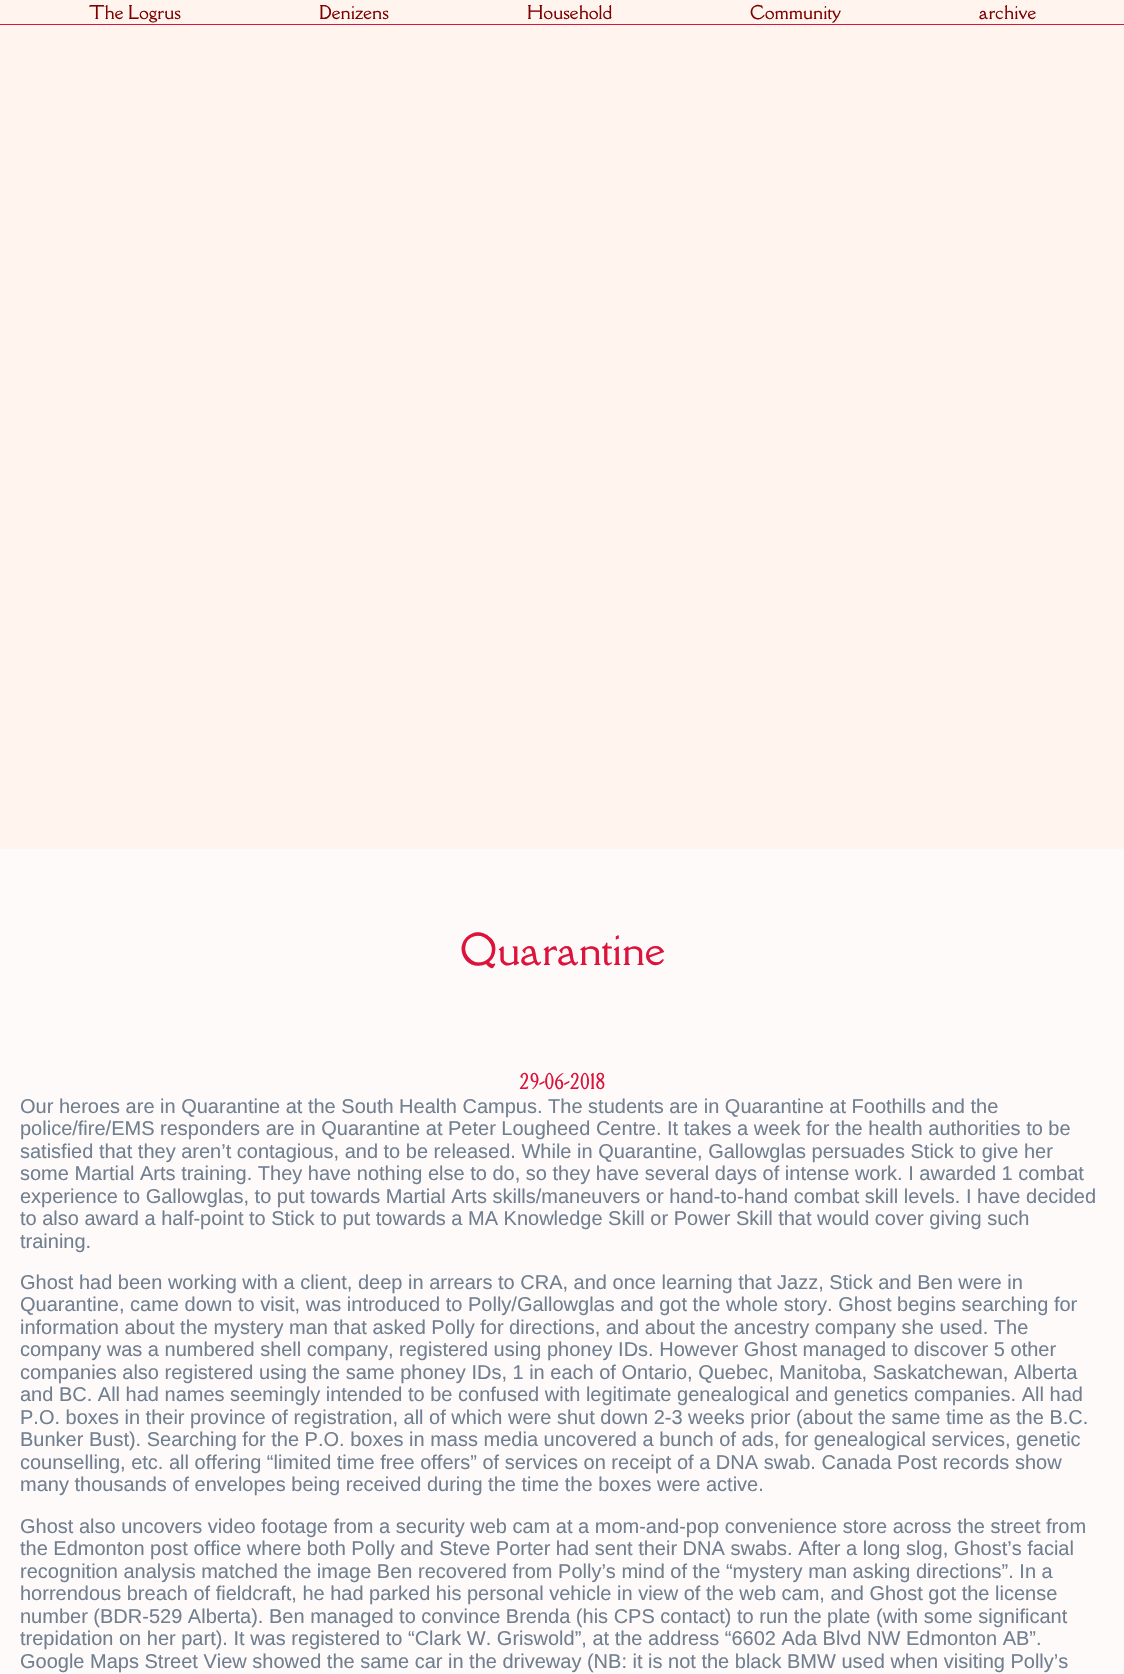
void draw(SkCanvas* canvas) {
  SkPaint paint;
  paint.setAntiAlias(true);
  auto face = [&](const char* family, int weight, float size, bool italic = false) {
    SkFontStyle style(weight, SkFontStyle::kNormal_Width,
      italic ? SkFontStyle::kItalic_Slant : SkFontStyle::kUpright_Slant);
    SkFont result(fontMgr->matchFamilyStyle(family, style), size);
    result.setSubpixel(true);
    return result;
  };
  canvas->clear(0xfffffafa);
  {
    const struct { float x, y, w, h; SkColor color; } items[] = {
      {0, 24, 1124, 1, 0xffdc143c},
      {0, 0, 1124, 24, 0xfffff5ee},
      {0, 25, 1124, 824, 0xfffff5ee},
    };
    for (auto [x, y, w, h, color] : items) {
      paint.setColor(color);
      canvas->drawRect(SkRect::MakeXYWH(x, y, w, h), paint);
    }
  }
  auto f0 = face("Della Respira", 500, 17.5f);
  paint.setColor(0xff800000);
  {
    const struct { const char* s; float x, y; } items[] = {
      {"The Logrus", 89, 19},
      {"Denizens", 319, 19},
      {"Household", 527, 19},
      {"Community", 750, 19},
      {"archive", 979, 19},
    };
    for (auto [s, x, y] : items) {
      canvas->drawString(s, x, y, f0, paint);
    }
  }
  auto f1 = face("Della Respira", 500, 40);
  paint.setColor(0xffdc143c);
  canvas->drawString("Quarantine", 460, 965, f1, paint);
  auto f2 = face("Della Respira", 500, 20);
  canvas->drawString("29-06-2018", 519, 1089, f2, paint);
  auto f3 = face("Liberation Sans", 400, 20);
  paint.setColor(0xff708090);
  {
    const struct { const char* s; float x, y; } items[] = {
      {"Our heroes are in Quarantine at the South Health Campus. The students are in Quarantine at Foothills and the", 20, 1113},
      {"police/fire/EMS responders are in Quarantine at Peter Lougheed Centre. It takes a week for the health authorities to be", 20, 1135},
      {"satisfied that they aren’t contagious, and to be released. While in Quarantine, Gallowglas persuades Stick to give her", 20, 1158},
      {"some Martial Arts training. They have nothing else to do, so they have several days of intense work. I awarded 1 combat", 20, 1180},
      {"experience to Gallowglas, to put towards Martial Arts skills/maneuvers or hand-to-hand combat skill levels. I have decided", 20, 1203},
      {"to also award a half-point to Stick to put towards a MA Knowledge Skill or Power Skill that would cover giving such", 20, 1225},
      {"training.", 20, 1248},
      {"Ghost had been working with a client, deep in arrears to CRA, and once learning that Jazz, Stick and Ben were in", 20, 1289},
      {"Quarantine, came down to visit, was introduced to Polly/Gallowglas and got the whole story. Ghost begins searching for", 20, 1311},
      {"information about the mystery man that asked Polly for directions, and about the ancestry company she used. The", 20, 1334},
      {"company was a numbered shell company, registered using phoney IDs. However Ghost managed to discover 5 other", 20, 1356},
      {"companies also registered using the same phoney IDs, 1 in each of Ontario, Quebec, Manitoba, Saskatchewan, Alberta", 20, 1379},
      {"and BC. All had names seemingly intended to be confused with legitimate genealogical and genetics companies. All had", 20, 1401},
      {"P.O. boxes in their province of registration, all of which were shut down 2-3 weeks prior (about the same time as the B.C.", 20, 1424},
      {"Bunker Bust). Searching for the P.O. boxes in mass media uncovered a bunch of ads, for genealogical services, genetic", 20, 1446},
      {"counselling, etc. all offering “limited time free offers” of services on receipt of a DNA swab. Canada Post records show", 20, 1469},
      {"many thousands of envelopes being received during the time the boxes were active.", 20, 1491},
      {"Ghost also uncovers video footage from a security web cam at a mom-and-pop convenience store across the street from", 20, 1533},
      {"the Edmonton post office where both Polly and Steve Porter had sent their DNA swabs. After a long slog, Ghost’s facial", 20, 1555},
      {"recognition analysis matched the image Ben recovered from Polly’s mind of the “mystery man asking directions”. In a", 20, 1578},
      {"horrendous breach of fieldcraft, he had parked his personal vehicle in view of the web cam, and Ghost got the license", 20, 1600},
      {"number (BDR-529 Alberta). Ben managed to convince Brenda (his CPS contact) to run the plate (with some significant", 20, 1623},
      {"trepidation on her part). It was registered to “Clark W. Griswold”, at the address “6602 Ada Blvd NW Edmonton AB”.", 20, 1645},
      {"Google Maps Street View showed the same car in the driveway (NB: it is not the black BMW used when visiting Polly’s", 20, 1668},
    };
    for (auto [s, x, y] : items) {
      canvas->drawString(s, x, y, f3, paint);
    }
  }
}
